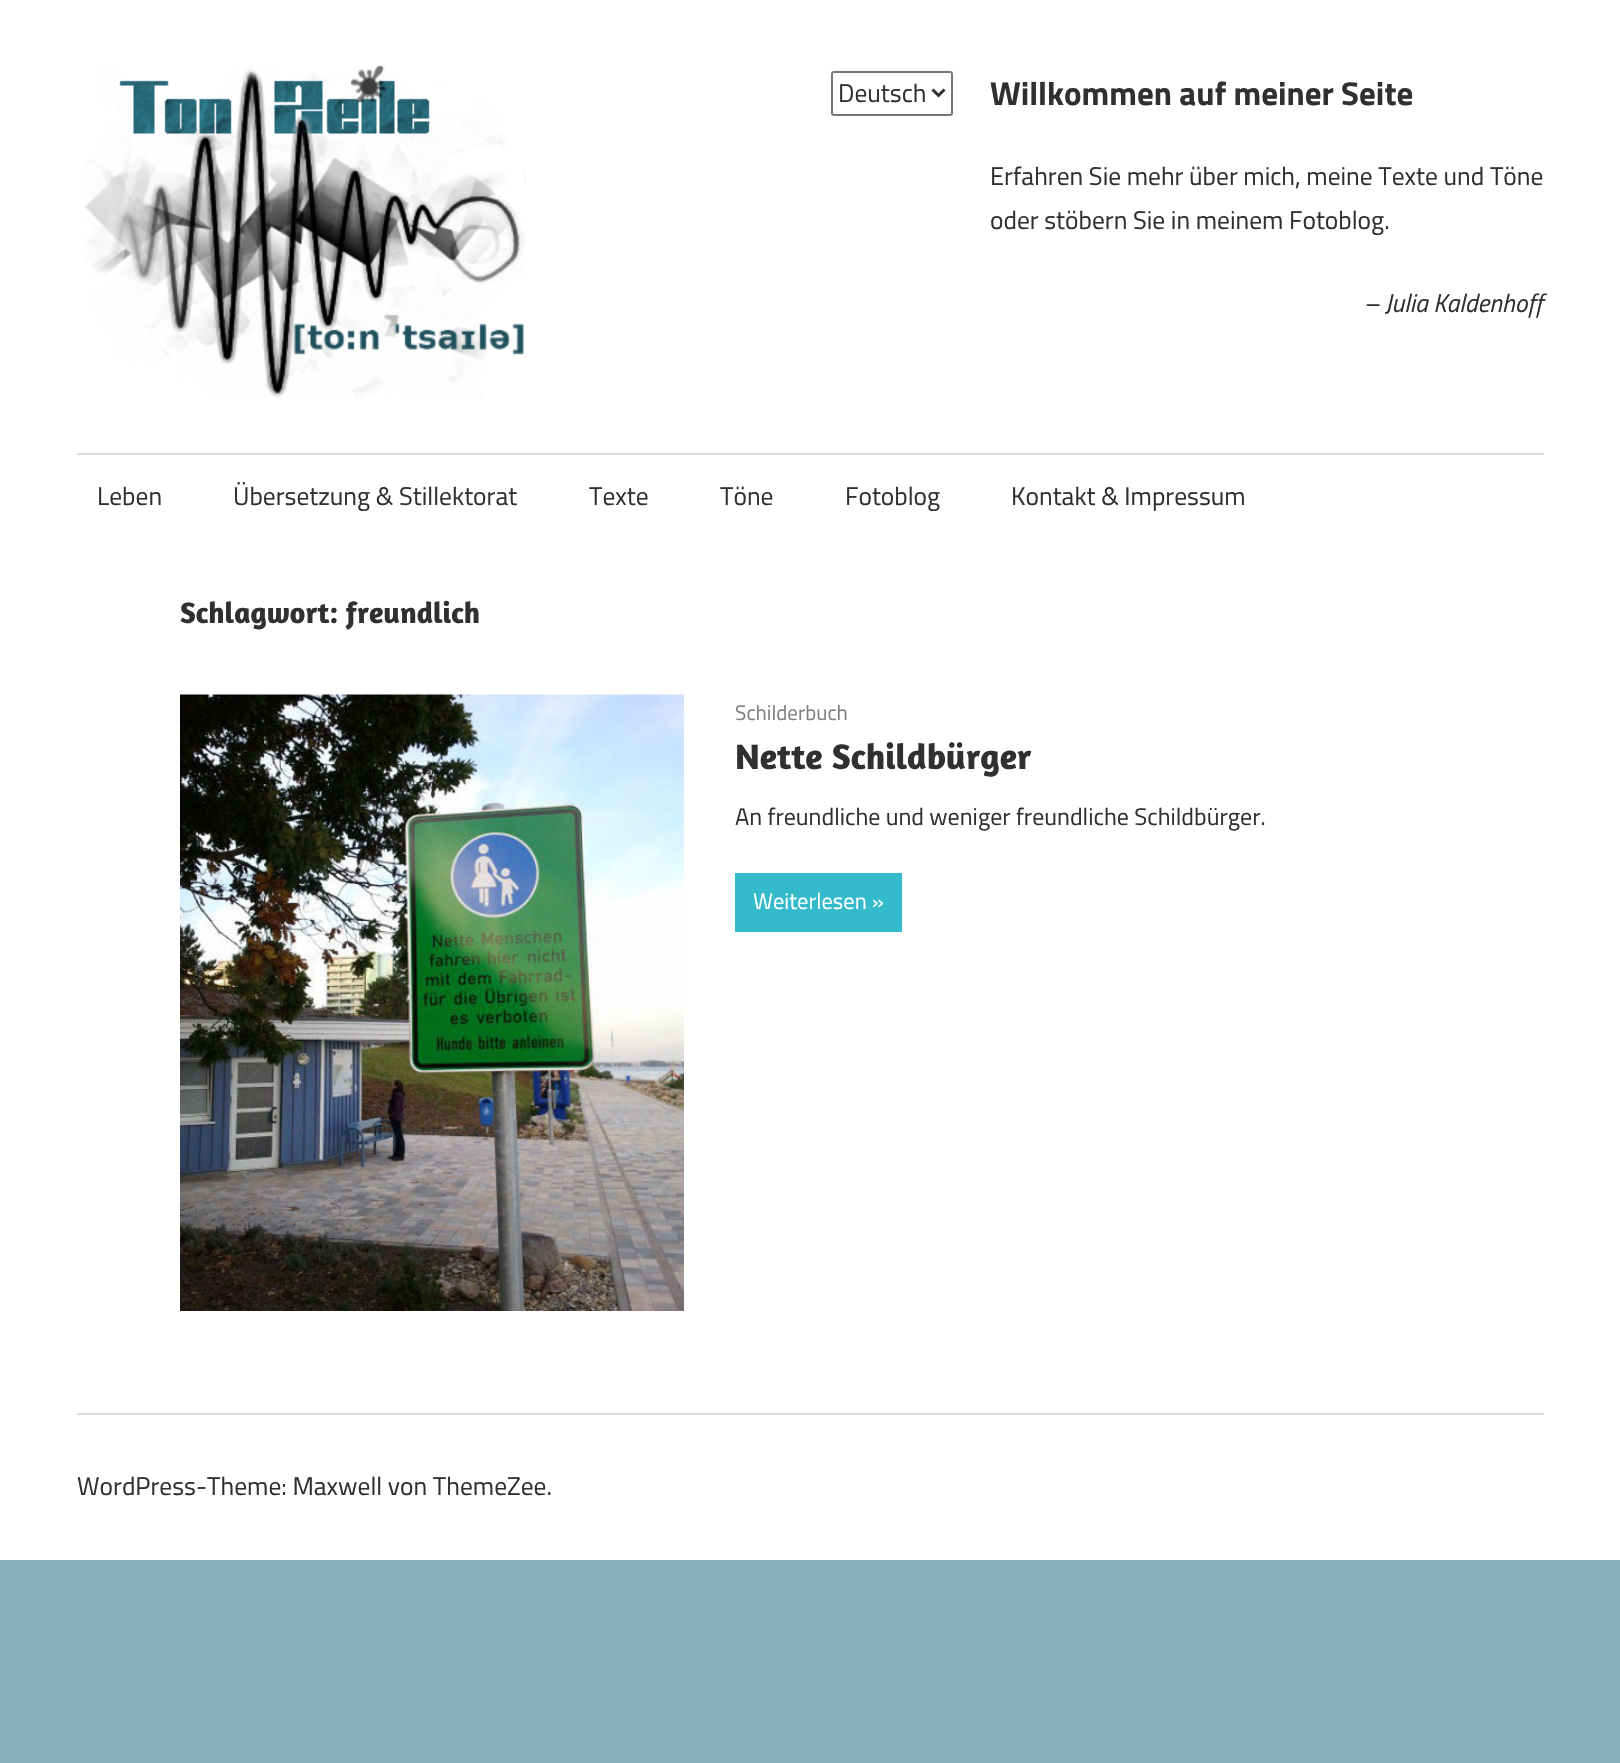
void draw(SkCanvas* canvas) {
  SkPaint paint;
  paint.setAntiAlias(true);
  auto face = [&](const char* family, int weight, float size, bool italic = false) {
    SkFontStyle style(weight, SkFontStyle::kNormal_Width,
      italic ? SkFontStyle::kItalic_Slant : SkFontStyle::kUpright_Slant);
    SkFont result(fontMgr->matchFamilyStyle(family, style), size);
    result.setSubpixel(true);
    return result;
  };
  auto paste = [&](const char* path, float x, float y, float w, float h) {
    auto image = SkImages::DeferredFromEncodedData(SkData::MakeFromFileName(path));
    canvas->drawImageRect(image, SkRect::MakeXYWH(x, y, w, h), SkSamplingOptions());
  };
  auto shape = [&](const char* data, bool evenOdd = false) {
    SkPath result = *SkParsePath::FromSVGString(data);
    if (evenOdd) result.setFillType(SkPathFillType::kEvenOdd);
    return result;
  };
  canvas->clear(0xff86adba);
  paint.setColor(0xffffffff);
  canvas->drawRect(SkRect::MakeXYWH(0, 0, 1620, 1560), paint);
  paste("img/1.png", 85, 65, 442, 335);
  paint.setStroke(true);
  paint.setStrokeWidth(2);
  paint.setColor(0xff767676);
  canvas->drawRoundRect(SkRect::MakeXYWH(832, 72, 120, 43), 2, 2, paint);
  paint.setStrokeWidth(3);
  paint.setColor(0xff303030);
  canvas->drawPath(shape("M932.5 89.5L938.5 95.5L944.5 89.5"), paint);
  paint.setStroke(false);
  paint.setColor(0xffd9d9d9);
  canvas->drawRect(SkRect::MakeXYWH(77, 453, 1467, 2), paint);
  paste("img/2.png", 180, 694, 504, 617);
  paint.setColor(0xff33bbcc);
  canvas->drawRect(SkRect::MakeXYWH(735, 873, 167, 59), paint);
  paint.setColor(0xffd9d9d9);
  canvas->drawRect(SkRect::MakeXYWH(77, 1413, 1467, 2), paint);
  auto f0 = face("Titillium Web", 400, 25.5f);
  paint.setColor(0xff303030);
  canvas->drawString("Deutsch", 838, 102, f0, paint);
  auto f1 = face("Titillium Web", 700, 33);
  canvas->drawString("Willkommen auf meiner Seite", 990, 105, f1, paint);
  canvas->drawString("Erfahren Sie mehr über mich, meine Texte und Töne", 990, 185, f0, paint);
  canvas->drawString("oder stöbern Sie in meinem Fotoblog.", 990, 229, f0, paint);
  auto f2 = face("Titillium Web", 400, 25.5f, true);
  canvas->drawString("– Julia Kaldenhoff", 1364, 312, f2, paint);
  {
    const struct { const char* s; float x, y; } items[] = {
      {"Leben", 97, 505},
      {"Übersetzung & Stillektorat", 233, 505},
      {"Texte", 589, 505},
      {"Töne", 720, 505},
      {"Fotoblog", 845, 505},
      {"Kontakt & Impressum", 1011, 505},
    };
    for (auto [s, x, y] : items) {
      canvas->drawString(s, x, y, f0, paint);
    }
  }
  auto f3 = face("Amaranth", 700, 30);
  canvas->drawString("Schlagwort: freundlich", 180, 623, f3, paint);
  auto f4 = face("Titillium Web", 400, 21);
  paint.setColor(0xff808080);
  canvas->drawString("Schilderbuch", 735, 720, f4, paint);
  auto f5 = face("Amaranth", 700, 36);
  paint.setColor(0xff303030);
  canvas->drawString("Nette Schildbürger", 735, 769, f5, paint);
  auto f6 = face("Titillium Web", 400, 24);
  canvas->drawString("An freundliche und weniger freundliche Schildbürger.", 735, 825, f6, paint);
  auto f7 = face("Titillium Web", 400, 22.5f);
  paint.setColor(0xffffffff);
  canvas->drawString("Weiterlesen »", 753, 909, f7, paint);
  paint.setColor(0xff303030);
  canvas->drawString("WordPress-Theme: Maxwell von ThemeZee.", 77, 1495, f0, paint);
}
